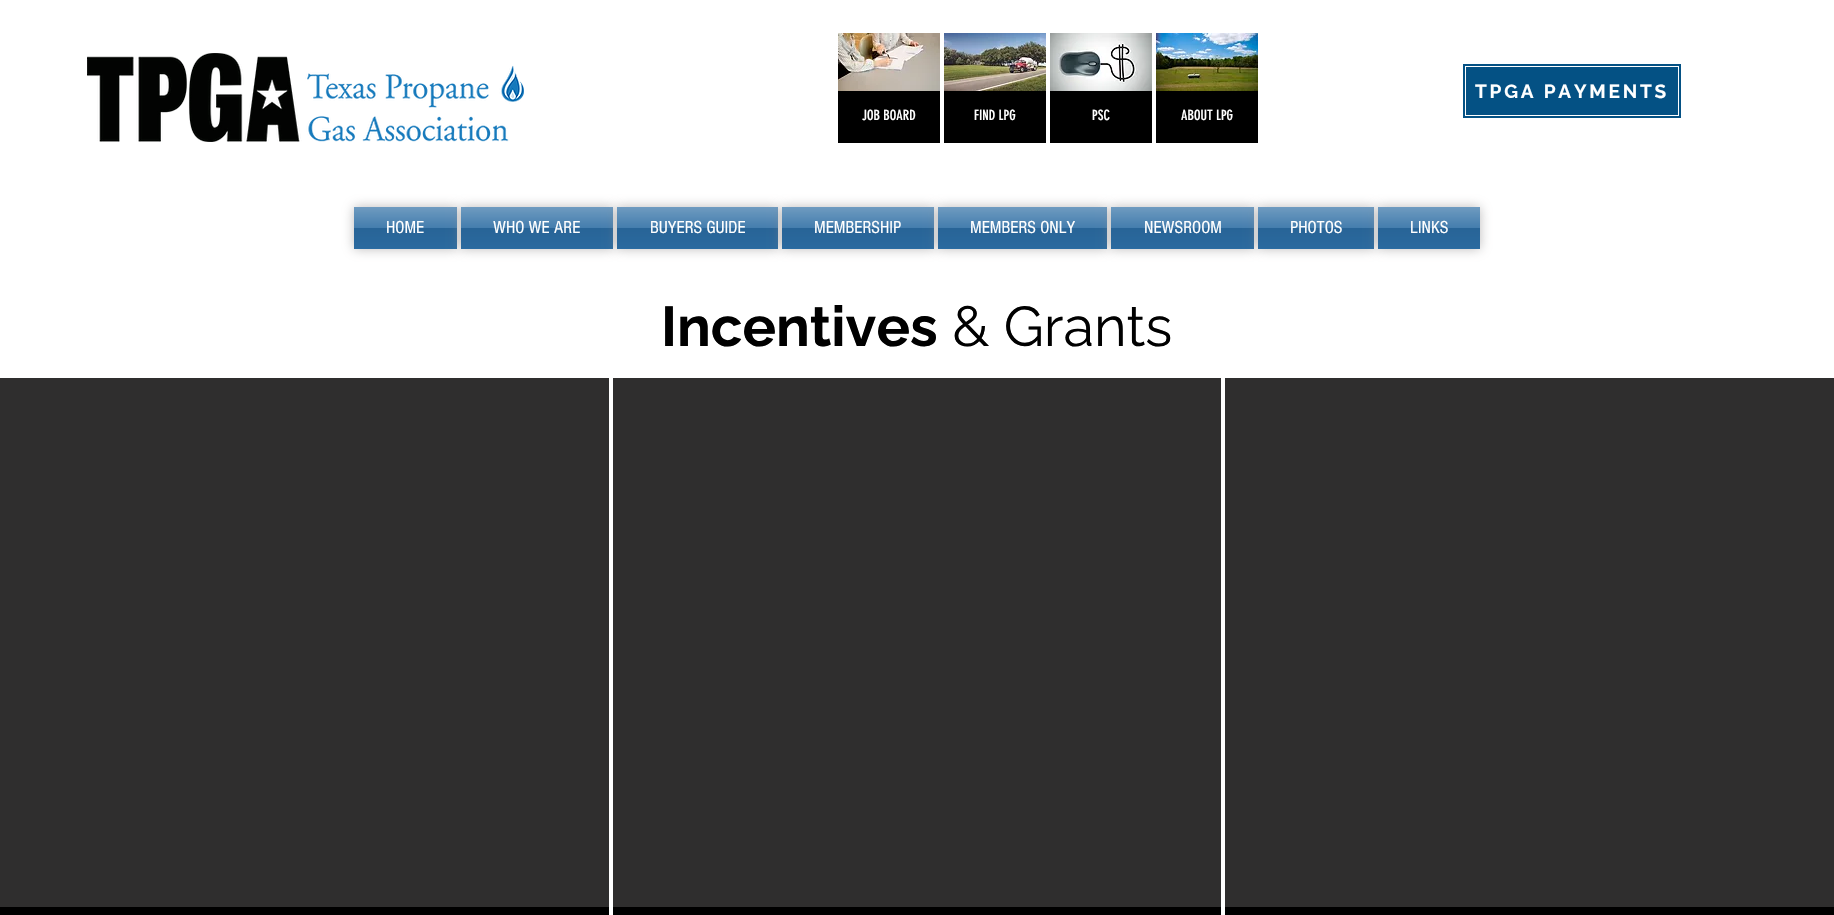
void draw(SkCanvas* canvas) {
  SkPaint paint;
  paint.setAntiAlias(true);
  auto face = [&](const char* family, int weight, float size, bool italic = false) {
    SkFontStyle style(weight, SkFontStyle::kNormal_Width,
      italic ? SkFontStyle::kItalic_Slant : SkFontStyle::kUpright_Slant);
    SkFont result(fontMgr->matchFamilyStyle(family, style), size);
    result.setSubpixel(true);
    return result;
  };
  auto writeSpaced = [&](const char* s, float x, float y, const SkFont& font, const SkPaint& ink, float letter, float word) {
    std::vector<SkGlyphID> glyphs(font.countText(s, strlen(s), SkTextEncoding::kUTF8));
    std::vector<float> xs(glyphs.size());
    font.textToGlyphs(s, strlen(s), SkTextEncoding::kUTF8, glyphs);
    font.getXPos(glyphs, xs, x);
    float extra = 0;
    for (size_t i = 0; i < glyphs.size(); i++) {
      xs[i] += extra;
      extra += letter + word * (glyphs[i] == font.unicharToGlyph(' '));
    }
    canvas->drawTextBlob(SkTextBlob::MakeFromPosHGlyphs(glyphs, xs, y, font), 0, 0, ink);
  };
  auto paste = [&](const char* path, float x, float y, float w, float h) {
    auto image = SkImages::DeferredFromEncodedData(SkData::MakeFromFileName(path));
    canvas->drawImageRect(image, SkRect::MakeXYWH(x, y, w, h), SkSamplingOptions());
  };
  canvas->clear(0xffffffff);
  paste("img/1.png", 87, 53, 437, 89);
  paint.setColor(0xff045184);
  canvas->drawRect(SkRect::MakeXYWH(1463, 64, 218, 54), paint);
  paint.setStroke(true);
  paint.setStrokeWidth(1);
  paint.setColor(0xffffffff);
  canvas->drawRect(SkRect::MakeXYWH(1465.5f, 66.5f, 213, 49), paint);
  paste("img/2.png", 838, 33, 102, 58);
  paint.setStroke(false);
  paint.setColor(0xff000000);
  canvas->drawRect(SkRect::MakeXYWH(838, 91, 102, 52), paint);
  paste("img/3.png", 944, 33, 102, 58);
  canvas->drawRect(SkRect::MakeXYWH(944, 91, 102, 52), paint);
  paste("img/4.png", 1050, 33, 102, 58);
  canvas->drawRect(SkRect::MakeXYWH(1050, 91, 102, 52), paint);
  paste("img/5.png", 1156, 33, 102, 58);
  canvas->drawRect(SkRect::MakeXYWH(1156, 91, 102, 52), paint);
  paint.setColor(0x99918d8d);
  paint.setMaskFilter(SkMaskFilter::MakeBlur(kNormal_SkBlurStyle, 5.5f));
  canvas->drawRect(SkRect::MakeXYWH(354, 207, 103, 42), paint);
  paint.setMaskFilter(nullptr);
  paint.setColor(0xff2b6ca3);
  canvas->drawRect(SkRect::MakeXYWH(354, 207, 103, 42), paint);
  paste("img/6.png", 354, 207, 103, 41);
  paint.setColor(0x99918d8d);
  paint.setMaskFilter(SkMaskFilter::MakeBlur(kNormal_SkBlurStyle, 5.5f));
  canvas->drawRect(SkRect::MakeXYWH(461, 207, 152, 42), paint);
  paint.setMaskFilter(nullptr);
  paint.setColor(0xff2b6ca3);
  canvas->drawRect(SkRect::MakeXYWH(461, 207, 152, 42), paint);
  paste("img/7.png", 461, 207, 152, 41);
  paint.setColor(0x99918d8d);
  paint.setMaskFilter(SkMaskFilter::MakeBlur(kNormal_SkBlurStyle, 5.5f));
  canvas->drawRect(SkRect::MakeXYWH(617, 207, 161, 42), paint);
  paint.setMaskFilter(nullptr);
  paint.setColor(0xff2b6ca3);
  canvas->drawRect(SkRect::MakeXYWH(617, 207, 161, 42), paint);
  paste("img/8.png", 617, 207, 161, 41);
  paint.setColor(0x99918d8d);
  paint.setMaskFilter(SkMaskFilter::MakeBlur(kNormal_SkBlurStyle, 5.5f));
  canvas->drawRect(SkRect::MakeXYWH(782, 207, 152, 42), paint);
  paint.setMaskFilter(nullptr);
  paint.setColor(0xff2b6ca3);
  canvas->drawRect(SkRect::MakeXYWH(782, 207, 152, 42), paint);
  paste("img/7.png", 782, 207, 152, 41);
  paint.setColor(0x99918d8d);
  paint.setMaskFilter(SkMaskFilter::MakeBlur(kNormal_SkBlurStyle, 5.5f));
  canvas->drawRect(SkRect::MakeXYWH(938, 207, 169, 42), paint);
  paint.setMaskFilter(nullptr);
  paint.setColor(0xff2b6ca3);
  canvas->drawRect(SkRect::MakeXYWH(938, 207, 169, 42), paint);
  paste("img/9.png", 938, 207, 169, 41);
  paint.setColor(0x99918d8d);
  paint.setMaskFilter(SkMaskFilter::MakeBlur(kNormal_SkBlurStyle, 5.5f));
  canvas->drawRect(SkRect::MakeXYWH(1111, 207, 143, 42), paint);
  paint.setMaskFilter(nullptr);
  paint.setColor(0xff2b6ca3);
  canvas->drawRect(SkRect::MakeXYWH(1111, 207, 143, 42), paint);
  paste("img/10.png", 1111, 207, 143, 41);
  paint.setColor(0x99918d8d);
  paint.setMaskFilter(SkMaskFilter::MakeBlur(kNormal_SkBlurStyle, 5.5f));
  canvas->drawRect(SkRect::MakeXYWH(1258, 207, 116, 42), paint);
  paint.setMaskFilter(nullptr);
  paint.setColor(0xff2b6ca3);
  canvas->drawRect(SkRect::MakeXYWH(1258, 207, 116, 42), paint);
  paste("img/11.png", 1258, 207, 116, 41);
  paint.setColor(0x99918d8d);
  paint.setMaskFilter(SkMaskFilter::MakeBlur(kNormal_SkBlurStyle, 5.5f));
  canvas->drawRect(SkRect::MakeXYWH(1378, 207, 102, 42), paint);
  paint.setMaskFilter(nullptr);
  paint.setColor(0xff2b6ca3);
  canvas->drawRect(SkRect::MakeXYWH(1378, 207, 102, 42), paint);
  paste("img/12.png", 1378, 207, 102, 41);
  {
    const struct { float x, y, w, h; SkColor color; } items[] = {
      {0, 378, 609, 529, 0xff2f2e2e},
      {0, 907, 609, 8, 0xff000000},
      {613, 378, 608, 529, 0xff2f2e2e},
      {613, 907, 608, 8, 0xff000000},
      {1225, 378, 609, 529, 0xff2f2e2e},
      {1225, 907, 609, 8, 0xff000000},
    };
    for (auto [x, y, w, h, color] : items) {
      paint.setColor(color);
      canvas->drawRect(SkRect::MakeXYWH(x, y, w, h), paint);
    }
  }
  auto f0 = face("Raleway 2", 700, 19);
  paint.setColor(0xffffffff);
  writeSpaced("TPGA PAYMENTS", 1475, 98, f0, paint, 2.8f, 0);
  auto f1 = face("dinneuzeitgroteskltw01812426", 400, 14);
  {
    const struct { const char* s; float x, y; } items[] = {
      {"JOB BOARD", 862, 120},
      {"FIND LPG", 974, 120},
      {"PSC", 1092, 120},
      {"ABOUT LPG", 1181, 120},
    };
    for (auto [s, x, y] : items) {
      canvas->drawString(s, x, y, f1, paint);
    }
  }
  auto f2 = face("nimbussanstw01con", 400, 18);
  {
    const struct { const char* s; float x, y; } items[] = {
      {"HOME", 386, 233},
      {"WHO WE ARE", 493, 233},
      {"BUYERS GUIDE", 650, 233},
      {"MEMBERSHIP", 814, 233},
      {"MEMBERS ONLY", 970, 233},
      {"NEWSROOM", 1144, 233},
      {"PHOTOS", 1290, 233},
      {"LINKS", 1410, 233},
    };
    for (auto [s, x, y] : items) {
      canvas->drawString(s, x, y, f2, paint);
    }
  }
  auto f3 = face("Raleway", 700, 56);
  paint.setColor(0xff000000);
  canvas->drawString("Incentives", 661, 346, f3, paint);
  auto f4 = face("Raleway", 400, 56);
  canvas->drawString("& Grants", 952, 346, f4, paint);
}
